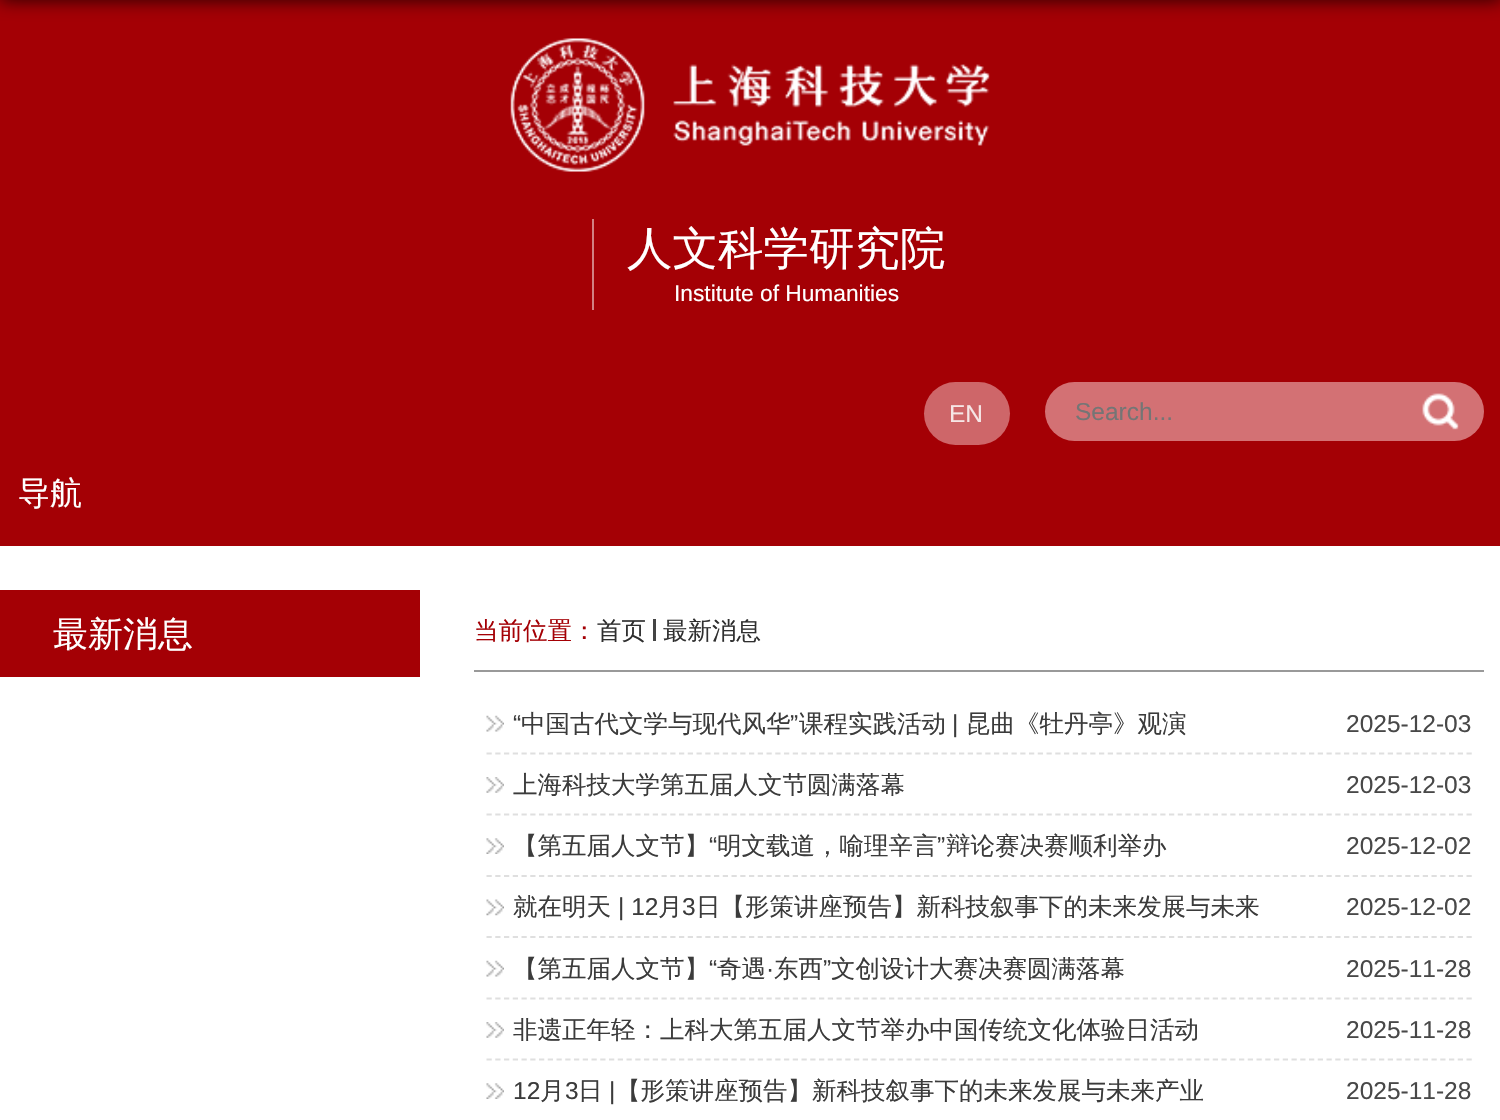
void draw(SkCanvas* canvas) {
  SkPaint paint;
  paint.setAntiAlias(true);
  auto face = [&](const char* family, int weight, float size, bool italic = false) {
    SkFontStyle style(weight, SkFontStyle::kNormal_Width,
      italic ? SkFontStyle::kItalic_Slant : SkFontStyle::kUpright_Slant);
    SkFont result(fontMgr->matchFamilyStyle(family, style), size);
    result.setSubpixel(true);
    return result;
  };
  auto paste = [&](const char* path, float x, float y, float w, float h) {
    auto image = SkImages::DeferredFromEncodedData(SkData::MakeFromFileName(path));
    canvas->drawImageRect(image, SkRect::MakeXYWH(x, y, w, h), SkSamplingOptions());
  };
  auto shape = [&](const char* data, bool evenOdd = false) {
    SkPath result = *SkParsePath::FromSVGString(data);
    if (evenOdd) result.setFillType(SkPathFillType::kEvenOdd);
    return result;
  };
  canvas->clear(0xffffffff);
  paint.setColor(0xffa40005);
  canvas->drawRect(SkRect::MakeXYWH(0, 0, 1500, 546), paint);
  paint.setColor(0xcc000000);
  paint.setMaskFilter(SkMaskFilter::MakeBlur(kNormal_SkBlurStyle, 9));
  canvas->drawRect(SkRect::MakeXYWH(0, -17, 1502, 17), paint);
  paint.setMaskFilter(nullptr);
  paste("img/1.png", 510, 38, 480, 134);
  paint.setColor(0xffd28082);
  canvas->drawRect(SkRect::MakeXYWH(592, 219, 2, 91), paint);
  paint.setColor(0xffce6669);
  canvas->drawRoundRect(SkRect::MakeXYWH(924, 382, 86, 63), 31.5f, 31.5f, paint);
  paint.setColor(0xffd37174);
  canvas->drawRoundRect(SkRect::MakeXYWH(1045, 382, 439, 59), 29.5f, 29.5f, paint);
  paste("img/2.png", 1422, 393, 37, 37);
  {
    const struct { float x, y, w, h; SkColor color; } items[] = {
      {0, 590, 420, 87, 0xffa40005},
      {474, 670, 1010, 2, 0xff999999},
      {653, 619, 3, 22, 0xff444444},
    };
    for (auto [x, y, w, h, color] : items) {
      paint.setColor(color);
      canvas->drawRect(SkRect::MakeXYWH(x, y, w, h), paint);
    }
  }
  paste("img/3.png", 486, 715, 18, 17);
  paint.setStroke(true);
  paint.setStrokeWidth(1.8f);
  paint.setColor(0xffdfdfdf);
  paint.setPathEffect(SkDashPathEffect::Make({{5.25f, 3.5f}}, 0));
  canvas->drawPath(shape("M486.5 753.5H1472"), paint);
  paint.setPathEffect(nullptr);
  paste("img/4.png", 486, 777, 18, 16);
  paint.setPathEffect(SkDashPathEffect::Make({{5.25f, 3.5f}}, 0));
  canvas->drawPath(shape("M486.5 814.5H1472"), paint);
  paint.setPathEffect(nullptr);
  paste("img/5.png", 486, 838, 18, 16);
  paint.setPathEffect(SkDashPathEffect::Make({{5.25f, 3.5f}}, 0));
  canvas->drawPath(shape("M486.5 876H1472"), paint);
  paint.setPathEffect(nullptr);
  paste("img/6.png", 486, 899, 18, 17);
  paint.setPathEffect(SkDashPathEffect::Make({{5.25f, 3.5f}}, 0));
  canvas->drawPath(shape("M486.5 937H1472"), paint);
  paint.setPathEffect(nullptr);
  paste("img/3.png", 486, 960, 18, 17);
  paint.setPathEffect(SkDashPathEffect::Make({{5.25f, 3.5f}}, 0));
  canvas->drawPath(shape("M486.5 998.5H1472"), paint);
  paint.setPathEffect(nullptr);
  paste("img/4.png", 486, 1022, 18, 16);
  paint.setPathEffect(SkDashPathEffect::Make({{5.25f, 3.5f}}, 0));
  canvas->drawPath(shape("M486.5 1059.5H1472"), paint);
  paint.setPathEffect(nullptr);
  paste("img/5.png", 486, 1083, 18, 16);
  auto f0 = face("WenQuanYi Zen Hei", 500, 45.5f);
  paint.setStroke(false);
  paint.setColor(0xffffffff);
  canvas->drawString("人文科学研究院", 627, 264, f0, paint);
  auto f1 = face("Liberation Sans", 400, 22.75f);
  canvas->drawString("Institute of Humanities", 674, 301, f1, paint);
  auto f2 = face("Liberation Sans", 400, 24.5f);
  paint.setColor(0xfff6e6e6);
  canvas->drawString("EN", 949, 422, f2, paint);
  paint.setColor(0xff757575);
  canvas->drawString("Search...", 1075, 420, f2, paint);
  auto f3 = face("WenQuanYi Zen Hei", 500, 32);
  paint.setColor(0xffffffff);
  canvas->drawString("导航", 18, 504, f3, paint);
  auto f4 = face("WenQuanYi Zen Hei", 500, 35);
  canvas->drawString("最新消息", 53, 646, f4, paint);
  auto f5 = face("WenQuanYi Zen Hei", 500, 24.5f);
  paint.setColor(0xffa40005);
  canvas->drawString("当前位置：", 474, 639, f5, paint);
  paint.setColor(0xff2f2f2f);
  canvas->drawString("首页", 597, 639, f5, paint);
  canvas->drawString("最新消息", 663, 639, f5, paint);
  paint.setColor(0xff3b3b3b);
  canvas->drawString("“", 513, 732, f2, paint);
  canvas->drawString("中国古代文学与现代风华", 521, 732, f5, paint);
  canvas->drawString("”", 790, 732, f2, paint);
  canvas->drawString("课程实践活动", 799, 732, f5, paint);
  canvas->drawString("|", 952, 732, f2, paint);
  canvas->drawString("昆曲《牡丹亭》观演", 966, 732, f5, paint);
  paint.setColor(0xff484848);
  canvas->drawString("2025-12-03", 1346, 732, f2, paint);
  paint.setColor(0xff3b3b3b);
  canvas->drawString("上海科技大学第五届人文节圆满落幕", 513, 793, f5, paint);
  paint.setColor(0xff484848);
  canvas->drawString("2025-12-03", 1346, 793, f2, paint);
  paint.setColor(0xff3b3b3b);
  canvas->drawString("【第五届人文节】", 513, 854, f5, paint);
  canvas->drawString("“", 709, 854, f2, paint);
  canvas->drawString("明文载道，喻理辛言", 717, 854, f5, paint);
  canvas->drawString("”", 937, 854, f2, paint);
  canvas->drawString("辩论赛决赛顺利举办", 946, 854, f5, paint);
  paint.setColor(0xff484848);
  canvas->drawString("2025-12-02", 1346, 854, f2, paint);
  paint.setColor(0xff3b3b3b);
  canvas->drawString("就在明天", 513, 915, f5, paint);
  canvas->drawString("| 12", 618, 915, f2, paint);
  canvas->drawString("月", 658, 915, f5, paint);
  canvas->drawString("3", 682, 915, f2, paint);
  canvas->drawString("日【形策讲座预告】新科技叙事下的未来发展与未来", 696, 915, f5, paint);
  paint.setColor(0xff484848);
  canvas->drawString("2025-12-02", 1346, 915, f2, paint);
  paint.setColor(0xff3b3b3b);
  canvas->drawString("【第五届人文节】", 513, 977, f5, paint);
  canvas->drawString("“", 709, 977, f2, paint);
  canvas->drawString("奇遇", 717, 977, f5, paint);
  canvas->drawString("东西", 774, 977, f5, paint);
  canvas->drawString("”", 823, 977, f2, paint);
  canvas->drawString("文创设计大赛决赛圆满落幕", 831, 977, f5, paint);
  canvas->drawString("·", 766, 977, f2, paint);
  paint.setColor(0xff484848);
  canvas->drawString("2025-11-28", 1346, 977, f2, paint);
  paint.setColor(0xff3b3b3b);
  canvas->drawString("非遗正年轻：上科大第五届人文节举办中国传统文化体验日活动", 513, 1038, f5, paint);
  paint.setColor(0xff484848);
  canvas->drawString("2025-11-28", 1346, 1038, f2, paint);
  paint.setColor(0xff3b3b3b);
  canvas->drawString("12", 513, 1099, f2, paint);
  canvas->drawString("月", 540, 1099, f5, paint);
  canvas->drawString("3", 565, 1099, f2, paint);
  canvas->drawString("日", 578, 1099, f5, paint);
  canvas->drawString("|", 609, 1099, f2, paint);
  canvas->drawString("【形策讲座预告】新科技叙事下的未来发展与未来产业", 616, 1099, f5, paint);
  paint.setColor(0xff484848);
  canvas->drawString("2025-11-28", 1346, 1099, f2, paint);
}
